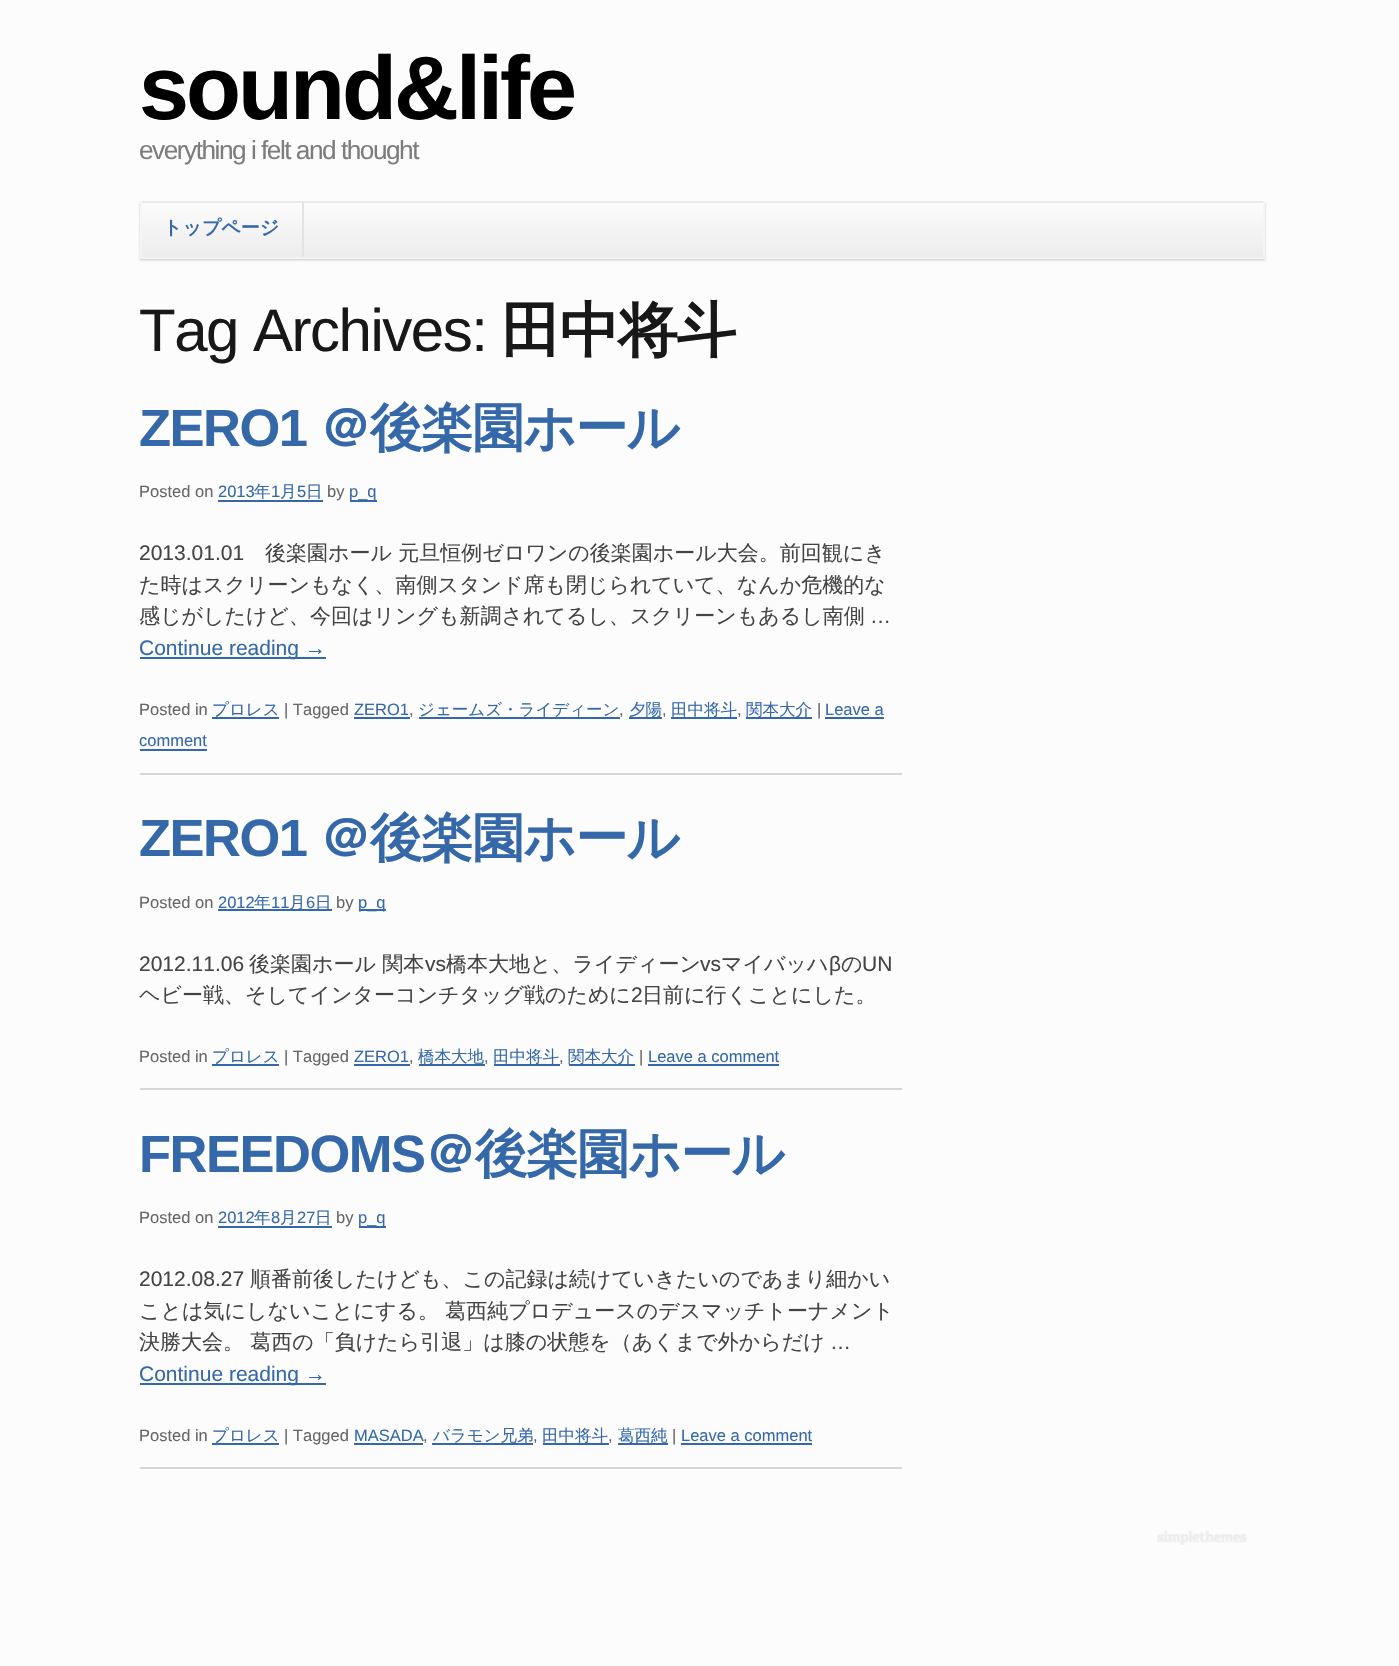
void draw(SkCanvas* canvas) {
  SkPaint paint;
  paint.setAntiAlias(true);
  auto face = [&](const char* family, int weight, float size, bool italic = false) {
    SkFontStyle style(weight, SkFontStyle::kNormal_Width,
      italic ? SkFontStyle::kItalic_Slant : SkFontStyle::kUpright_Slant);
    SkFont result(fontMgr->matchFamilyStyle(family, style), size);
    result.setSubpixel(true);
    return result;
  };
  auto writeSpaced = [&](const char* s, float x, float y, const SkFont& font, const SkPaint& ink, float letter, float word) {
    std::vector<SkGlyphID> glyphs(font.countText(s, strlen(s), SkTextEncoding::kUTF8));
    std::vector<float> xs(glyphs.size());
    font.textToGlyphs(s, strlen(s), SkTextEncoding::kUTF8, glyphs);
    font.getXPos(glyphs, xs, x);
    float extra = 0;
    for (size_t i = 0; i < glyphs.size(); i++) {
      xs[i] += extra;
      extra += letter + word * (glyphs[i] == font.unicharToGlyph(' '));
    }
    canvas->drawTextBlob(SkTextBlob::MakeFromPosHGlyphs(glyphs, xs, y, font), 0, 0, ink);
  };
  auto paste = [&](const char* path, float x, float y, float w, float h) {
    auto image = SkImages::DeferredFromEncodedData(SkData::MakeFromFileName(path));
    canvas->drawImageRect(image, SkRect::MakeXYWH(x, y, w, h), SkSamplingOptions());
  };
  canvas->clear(0xfffcfcfc);
  paint.setColor(0x33000000);
  paint.setMaskFilter(SkMaskFilter::MakeBlur(kNormal_SkBlurStyle, 1));
  canvas->drawRect(SkRect::MakeXYWH(140, 203, 1125, 57), paint);
  paint.setMaskFilter(nullptr);
  {
    const SkColor colors[] = {0xfffcfcfc, 0xffececec};
    const float stops[] = {0, 1};
    const SkPoint ends[] = {{702, 202}, {702, 257}};
    paint.setShader(SkGradientShader::MakeLinear(ends, colors, stops, 2, SkTileMode::kClamp));
    paint.setAlpha(255);
  }
  canvas->drawRect(SkRect::MakeXYWH(142, 203, 1121, 54), paint);
  paint.setShader(nullptr);
  {
    const struct { float x, y, w, h; SkColor color; } items[] = {
      {140, 201, 1125, 2, 0xffeaeaea},
      {1263, 201, 2, 57, 0xfff5f5f5},
      {140, 257, 1125, 2, 0xfff5f5f5},
      {140, 201, 2, 57, 0xfff5f5f5},
      {302, 203, 2, 54, 0xffe3e3e3},
      {141, 255, 1, 2, 0xffeeeeee},
      {140, 773, 762, 2, 0xffd6d6d6},
      {218, 500, 105, 2, 0xff3568a9},
      {350, 500, 27, 2, 0xff3568a9},
      {140, 657, 186, 2, 0xff3568a9},
      {212, 717, 67, 2, 0xff3568a9},
      {354, 717, 56, 2, 0xff3568a9},
      {419, 717, 201, 2, 0xff3568a9},
      {629, 717, 33, 2, 0xff3568a9},
      {671, 717, 66, 2, 0xff3568a9},
      {746, 717, 66, 2, 0xff3568a9},
      {825, 717, 59, 2, 0xff3568a9},
      {140, 749, 67, 2, 0xff3568a9},
      {140, 1088, 762, 2, 0xffd6d6d6},
      {218, 909, 114, 2, 0xff3568a9},
      {359, 909, 27, 2, 0xff3568a9},
      {212, 1064, 67, 2, 0xff3568a9},
      {354, 1064, 56, 2, 0xff3568a9},
      {419, 1064, 66, 2, 0xff3568a9},
      {494, 1064, 66, 2, 0xff3568a9},
      {569, 1064, 66, 2, 0xff3568a9},
      {648, 1064, 131, 2, 0xff3568a9},
      {140, 1467, 762, 2, 0xffd6d6d6},
      {218, 1226, 114, 2, 0xff3568a9},
      {359, 1226, 27, 2, 0xff3568a9},
      {140, 1383, 186, 2, 0xff3568a9},
      {212, 1443, 67, 2, 0xff3568a9},
      {354, 1443, 69, 2, 0xff3568a9},
      {432, 1443, 101, 2, 0xff3568a9},
      {543, 1443, 66, 2, 0xff3568a9},
      {618, 1443, 50, 2, 0xff3568a9},
      {681, 1443, 131, 2, 0xff3568a9},
    };
    for (auto [x, y, w, h, color] : items) {
      paint.setColor(color);
      canvas->drawRect(SkRect::MakeXYWH(x, y, w, h), paint);
    }
  }
  paste("img/1.png", 1157, 1530, 90, 15);
  auto f0 = face("Liberation Sans", 700, 90);
  paint.setColor(0xff000000);
  writeSpaced("sound&life", 139, 119, f0, paint, -3, 0);
  auto f1 = face("Liberation Sans", 400, 26.25f);
  paint.setColor(0xff7d7d7d);
  writeSpaced("everything i felt and thought", 139, 159, f1, paint, -1.5f, 0);
  auto f2 = face("WenQuanYi Zen Hei", 700, 19);
  paint.setColor(0xff3568a9);
  canvas->drawString("トップページ", 163, 234, f2, paint);
  auto f3 = face("Liberation Sans", 400, 60);
  paint.setColor(0xff181818);
  writeSpaced("Tag Archives:", 139, 351, f3, paint, -1.5f, 0);
  auto f4 = face("WenQuanYi Zen Hei", 700, 60);
  writeSpaced("田中将斗", 501, 351, f4, paint, -1.5f, 0);
  auto f5 = face("Liberation Sans", 700, 52.5f);
  paint.setColor(0xff3568a9);
  writeSpaced("ZERO1", 139, 446, f5, paint, -1.5f, 0);
  auto f6 = face("WenQuanYi Zen Hei", 700, 52.5f);
  writeSpaced("＠後楽園ホール", 319, 446, f6, paint, -1.5f, 0);
  auto f7 = face("Liberation Sans", 400, 16.5f);
  paint.setColor(0xff666666);
  canvas->drawString("Posted on", 139, 497, f7, paint);
  paint.setColor(0xff3568a9);
  canvas->drawString("2013", 218, 497, f7, paint);
  auto f8 = face("WenQuanYi Zen Hei", 500, 16.5f);
  canvas->drawString("年", 254, 497, f8, paint);
  canvas->drawString("1", 271, 497, f7, paint);
  canvas->drawString("月", 280, 497, f8, paint);
  canvas->drawString("5", 297, 497, f7, paint);
  canvas->drawString("日", 306, 497, f8, paint);
  paint.setColor(0xff666666);
  canvas->drawString("by", 327, 497, f7, paint);
  paint.setColor(0xff3568a9);
  canvas->drawString("p_q", 349, 497, f7, paint);
  auto f9 = face("Liberation Sans", 400, 21);
  paint.setColor(0xff444444);
  canvas->drawString("2013.01.01", 139, 560, f9, paint);
  auto f10 = face("WenQuanYi Zen Hei", 500, 21);
  {
    const struct { const char* s; float x, y; } items[] = {
      {"後楽園ホール 元旦恒例ゼロワンの後楽園ホール大会。前回観にき", 265, 560},
      {"た時はスクリーンもなく、南側スタンド席も閉じられていて、なんか危機的な", 139, 592},
      {"感じがしたけど、今回はリングも新調されてるし、スクリーンもあるし南側", 139, 623},
    };
    for (auto [s, x, y] : items) {
      canvas->drawString(s, x, y, f10, paint);
    }
  }
  canvas->drawString("…", 870, 623, f9, paint);
  paint.setColor(0xff3568a9);
  canvas->drawString("Continue reading →", 139, 655, f9, paint);
  paint.setColor(0xff666666);
  canvas->drawString("Posted in", 139, 715, f7, paint);
  paint.setColor(0xff3568a9);
  canvas->drawString("プロレス", 212, 715, f8, paint);
  paint.setColor(0xff666666);
  canvas->drawString("| Tagged", 284, 715, f7, paint);
  paint.setColor(0xff3568a9);
  canvas->drawString("ZERO1", 354, 715, f7, paint);
  paint.setColor(0xff666666);
  canvas->drawString(",", 409, 715, f7, paint);
  paint.setColor(0xff3568a9);
  canvas->drawString("ジェームズ・ライディーン", 418, 715, f8, paint);
  paint.setColor(0xff666666);
  canvas->drawString(",", 619, 715, f7, paint);
  paint.setColor(0xff3568a9);
  canvas->drawString("夕陽", 629, 715, f8, paint);
  paint.setColor(0xff666666);
  canvas->drawString(",", 662, 715, f7, paint);
  paint.setColor(0xff3568a9);
  canvas->drawString("田中将斗", 671, 715, f8, paint);
  paint.setColor(0xff666666);
  canvas->drawString(",", 737, 715, f7, paint);
  paint.setColor(0xff3568a9);
  canvas->drawString("関本大介", 746, 715, f8, paint);
  paint.setColor(0xff666666);
  canvas->drawString("|", 817, 715, f7, paint);
  paint.setColor(0xff3568a9);
  canvas->drawString("Leave a", 825, 715, f7, paint);
  canvas->drawString("comment", 139, 746, f7, paint);
  writeSpaced("ZERO1", 139, 856, f5, paint, -1.5f, 0);
  writeSpaced("＠後楽園ホール", 319, 856, f6, paint, -1.5f, 0);
  paint.setColor(0xff666666);
  canvas->drawString("Posted on", 139, 908, f7, paint);
  paint.setColor(0xff3568a9);
  canvas->drawString("2012", 218, 908, f7, paint);
  canvas->drawString("年", 254, 908, f8, paint);
  canvas->drawString("11", 271, 908, f7, paint);
  canvas->drawString("月", 289, 908, f8, paint);
  canvas->drawString("6", 306, 908, f7, paint);
  canvas->drawString("日", 315, 908, f8, paint);
  paint.setColor(0xff666666);
  canvas->drawString("by", 336, 908, f7, paint);
  paint.setColor(0xff3568a9);
  canvas->drawString("p_q", 358, 908, f7, paint);
  paint.setColor(0xff444444);
  canvas->drawString("2012.11.06", 139, 971, f9, paint);
  canvas->drawString("後楽園ホール 関本", 249, 971, f10, paint);
  canvas->drawString("vs", 425, 971, f9, paint);
  canvas->drawString("橋本大地と、ライディーン", 446, 971, f10, paint);
  canvas->drawString("vs", 700, 971, f9, paint);
  canvas->drawString("マイバッハ", 721, 971, f10, paint);
  canvas->drawString("β", 829, 971, f9, paint);
  canvas->drawString("の", 841, 971, f10, paint);
  canvas->drawString("UN", 862, 971, f9, paint);
  canvas->drawString("ヘビー戦、そしてインターコンチタッグ戦のために", 139, 1002, f10, paint);
  canvas->drawString("2", 631, 1002, f9, paint);
  canvas->drawString("日前に行くことにした。", 642, 1002, f10, paint);
  paint.setColor(0xff666666);
  canvas->drawString("Posted in", 139, 1062, f7, paint);
  paint.setColor(0xff3568a9);
  canvas->drawString("プロレス", 212, 1062, f8, paint);
  paint.setColor(0xff666666);
  canvas->drawString("| Tagged", 284, 1062, f7, paint);
  paint.setColor(0xff3568a9);
  canvas->drawString("ZERO1", 354, 1062, f7, paint);
  paint.setColor(0xff666666);
  canvas->drawString(",", 409, 1062, f7, paint);
  paint.setColor(0xff3568a9);
  canvas->drawString("橋本大地", 418, 1062, f8, paint);
  paint.setColor(0xff666666);
  canvas->drawString(",", 484, 1062, f7, paint);
  paint.setColor(0xff3568a9);
  canvas->drawString("田中将斗", 493, 1062, f8, paint);
  paint.setColor(0xff666666);
  canvas->drawString(",", 559, 1062, f7, paint);
  paint.setColor(0xff3568a9);
  canvas->drawString("関本大介", 568, 1062, f8, paint);
  paint.setColor(0xff666666);
  canvas->drawString("|", 639, 1062, f7, paint);
  paint.setColor(0xff3568a9);
  canvas->drawString("Leave a comment", 648, 1062, f7, paint);
  writeSpaced("FREEDOMS", 139, 1172, f5, paint, -1.5f, 0);
  writeSpaced("＠後楽園ホール", 424, 1172, f6, paint, -1.5f, 0);
  paint.setColor(0xff666666);
  canvas->drawString("Posted on", 139, 1223, f7, paint);
  paint.setColor(0xff3568a9);
  canvas->drawString("2012", 218, 1223, f7, paint);
  canvas->drawString("年", 254, 1223, f8, paint);
  canvas->drawString("8", 271, 1223, f7, paint);
  canvas->drawString("月", 280, 1223, f8, paint);
  canvas->drawString("27", 297, 1223, f7, paint);
  canvas->drawString("日", 315, 1223, f8, paint);
  paint.setColor(0xff666666);
  canvas->drawString("by", 336, 1223, f7, paint);
  paint.setColor(0xff3568a9);
  canvas->drawString("p_q", 358, 1223, f7, paint);
  paint.setColor(0xff444444);
  canvas->drawString("2012.08.27", 139, 1286, f9, paint);
  {
    const struct { const char* s; float x, y; } items[] = {
      {"順番前後したけども、この記録は続けていきたいのであまり細かい", 250, 1286},
      {"ことは気にしないことにする。 葛西純プロデュースのデスマッチトーナメント", 139, 1318},
      {"決勝大会。 葛西の「負けたら引退」は膝の状態を（あくまで外からだけ", 139, 1349},
    };
    for (auto [s, x, y] : items) {
      canvas->drawString(s, x, y, f10, paint);
    }
  }
  canvas->drawString("…", 830, 1349, f9, paint);
  paint.setColor(0xff3568a9);
  canvas->drawString("Continue reading →", 139, 1381, f9, paint);
  paint.setColor(0xff666666);
  canvas->drawString("Posted in", 139, 1441, f7, paint);
  paint.setColor(0xff3568a9);
  canvas->drawString("プロレス", 212, 1441, f8, paint);
  paint.setColor(0xff666666);
  canvas->drawString("| Tagged", 284, 1441, f7, paint);
  paint.setColor(0xff3568a9);
  canvas->drawString("MASADA", 354, 1441, f7, paint);
  paint.setColor(0xff666666);
  canvas->drawString(",", 423, 1441, f7, paint);
  paint.setColor(0xff3568a9);
  canvas->drawString("バラモン兄弟", 433, 1441, f8, paint);
  paint.setColor(0xff666666);
  canvas->drawString(",", 533, 1441, f7, paint);
  paint.setColor(0xff3568a9);
  canvas->drawString("田中将斗", 542, 1441, f8, paint);
  paint.setColor(0xff666666);
  canvas->drawString(",", 608, 1441, f7, paint);
  paint.setColor(0xff3568a9);
  canvas->drawString("葛西純", 618, 1441, f8, paint);
  paint.setColor(0xff666666);
  canvas->drawString("|", 672, 1441, f7, paint);
  paint.setColor(0xff3568a9);
  canvas->drawString("Leave a comment", 681, 1441, f7, paint);
}
